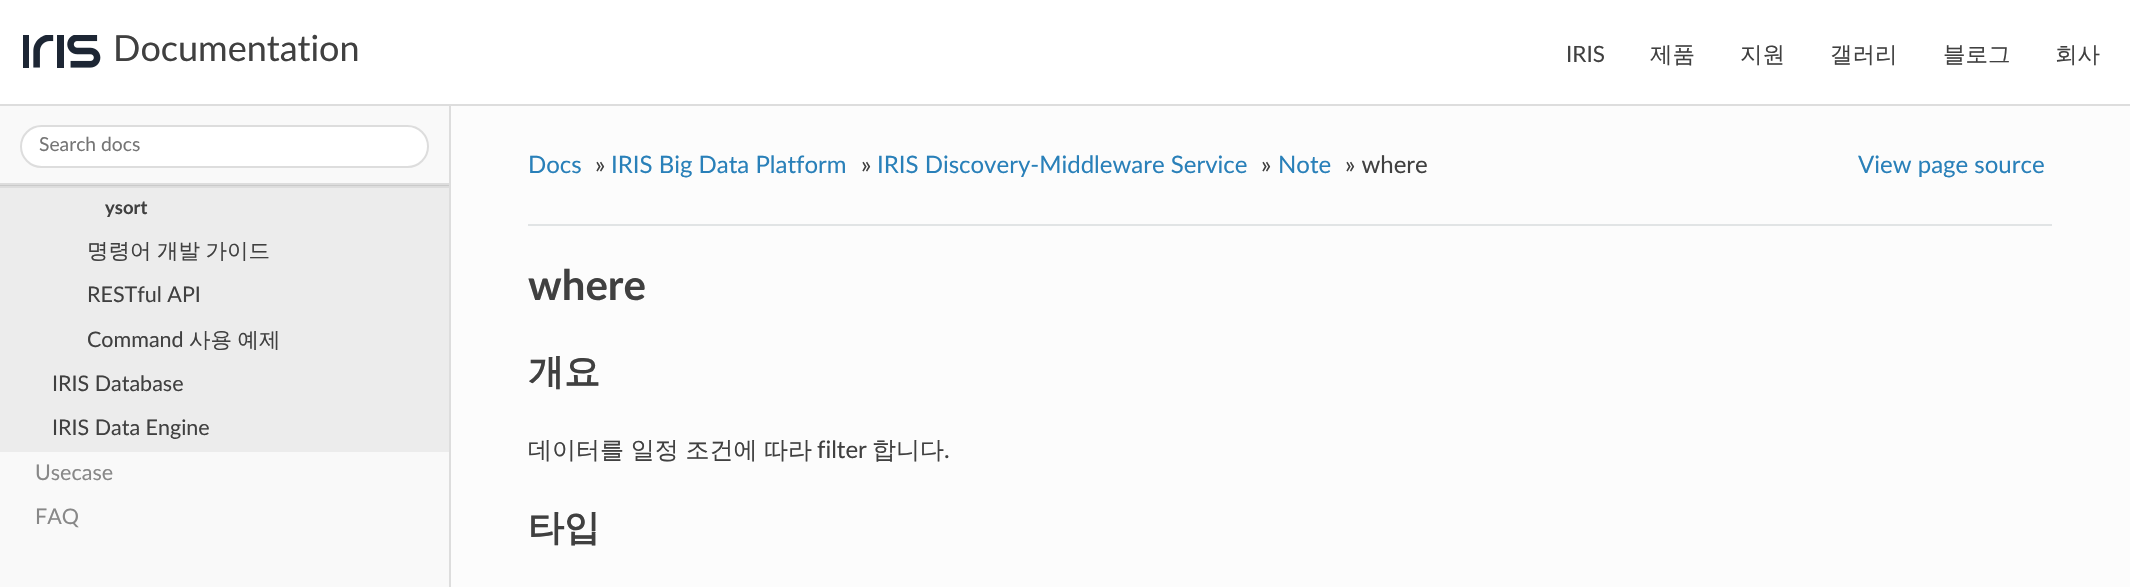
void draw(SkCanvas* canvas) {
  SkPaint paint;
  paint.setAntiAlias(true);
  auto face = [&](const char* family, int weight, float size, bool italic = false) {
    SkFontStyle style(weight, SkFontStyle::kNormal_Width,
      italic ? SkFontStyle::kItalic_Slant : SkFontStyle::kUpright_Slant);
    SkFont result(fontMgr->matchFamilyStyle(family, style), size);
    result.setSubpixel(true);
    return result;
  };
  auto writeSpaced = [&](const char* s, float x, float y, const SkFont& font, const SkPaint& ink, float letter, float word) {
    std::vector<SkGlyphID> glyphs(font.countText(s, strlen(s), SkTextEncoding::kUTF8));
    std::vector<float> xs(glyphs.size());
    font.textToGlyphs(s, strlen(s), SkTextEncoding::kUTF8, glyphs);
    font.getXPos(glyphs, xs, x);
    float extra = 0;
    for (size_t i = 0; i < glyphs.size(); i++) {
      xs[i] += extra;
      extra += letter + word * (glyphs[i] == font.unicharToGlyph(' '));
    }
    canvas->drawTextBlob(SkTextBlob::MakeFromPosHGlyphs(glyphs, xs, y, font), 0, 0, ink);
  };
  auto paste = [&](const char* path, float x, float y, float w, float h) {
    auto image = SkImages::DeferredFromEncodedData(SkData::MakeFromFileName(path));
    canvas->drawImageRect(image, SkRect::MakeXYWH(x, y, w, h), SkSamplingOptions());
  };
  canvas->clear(0xfffcfcfc);
  {
    const struct { float x, y, w, h; SkColor color; } items[] = {
      {0, 0, 2130, 104, 0xffffffff},
      {449, 105, 2, 482, 0xffdddddd},
      {0, 104, 2130, 2, 0xffdddddd},
    };
    for (auto [x, y, w, h, color] : items) {
      paint.setColor(color);
      canvas->drawRect(SkRect::MakeXYWH(x, y, w, h), paint);
    }
  }
  paste("img/1.png", 23, 35, 78, 33);
  {
    const struct { float x, y, w, h; SkColor color; } items[] = {
      {0, 452, 449, 135, 0xfff9f9f9},
      {0, 106, 449, 77, 0xfff9f9f9},
      {0, 183, 450, 2, 0xffdddddd},
    };
    for (auto [x, y, w, h, color] : items) {
      paint.setColor(color);
      canvas->drawRect(SkRect::MakeXYWH(x, y, w, h), paint);
    }
  }
  paint.setColor(0xffffffff);
  canvas->drawRoundRect(SkRect::MakeXYWH(21, 126, 407, 41), 20.5f, 20.5f, paint);
  paint.setStroke(true);
  paint.setStrokeWidth(2);
  paint.setColor(0xffdddddd);
  canvas->drawRoundRect(SkRect::MakeXYWH(21, 126, 407, 41), 20.5f, 20.5f, paint);
  paint.setStroke(false);
  {
    const struct { float x, y, w, h; SkColor color; } items[] = {
      {0, 188, 449, 264, 0xffececec},
      {0, 185, 449, 1, 0xffcacaca},
      {0, 186, 449, 2, 0xffdddddd},
      {528, 224, 1524, 2, 0xffe1e4e5},
    };
    for (auto [x, y, w, h, color] : items) {
      paint.setColor(color);
      canvas->drawRect(SkRect::MakeXYWH(x, y, w, h), paint);
    }
  }
  auto f0 = face("Lato", 400, 36);
  paint.setColor(0xff404040);
  canvas->drawString("Documentation", 113, 61, f0, paint);
  auto f1 = face("Lato", 400, 22.5f);
  canvas->drawString("IRIS", 1566, 62, f1, paint);
  auto f2 = face("WenQuanYi Zen Hei", 500, 22.5f);
  {
    const struct { const char* s; float x, y; } items[] = {
      {"제품", 1650, 62},
      {"지원", 1740, 62},
      {"갤러리", 1830, 62},
      {"블로그", 1943, 62},
      {"회사", 2055, 62},
    };
    for (auto [s, x, y] : items) {
      canvas->drawString(s, x, y, f2, paint);
    }
  }
  auto f3 = face("Lato", 400, 19.25f);
  paint.setColor(0xff757575);
  canvas->drawString("Search docs", 39, 151, f3, paint);
  auto f4 = face("Lato", 700, 18.5f);
  paint.setColor(0xff404040);
  canvas->drawString("ysort", 105, 214, f4, paint);
  auto f5 = face("WenQuanYi Zen Hei", 500, 21.5f);
  writeSpaced("명령어 개발 가이드", 87, 258, f5, paint, 0, -1);
  auto f6 = face("Lato", 400, 21.5f);
  canvas->drawString("RESTful API", 87, 302, f6, paint);
  canvas->drawString("Command", 87, 347, f6, paint);
  writeSpaced("사용 예제", 189, 347, f5, paint, 0, -1);
  canvas->drawString("IRIS Database", 52, 391, f6, paint);
  canvas->drawString("IRIS Data Engine", 52, 435, f6, paint);
  paint.setColor(0xff888888);
  canvas->drawString("Usecase", 35, 480, f6, paint);
  canvas->drawString("FAQ", 35, 524, f6, paint);
  auto f7 = face("Lato", 400, 24);
  paint.setColor(0xff2980b9);
  canvas->drawString("Docs", 528, 173, f7, paint);
  paint.setColor(0xff404040);
  canvas->drawString("»", 595, 173, f7, paint);
  paint.setColor(0xff2980b9);
  canvas->drawString("IRIS Big Data Platform", 611, 173, f7, paint);
  paint.setColor(0xff404040);
  canvas->drawString("»", 861, 173, f7, paint);
  paint.setColor(0xff2980b9);
  canvas->drawString("IRIS Discovery-Middleware Service", 877, 173, f7, paint);
  paint.setColor(0xff404040);
  canvas->drawString("»", 1261, 173, f7, paint);
  paint.setColor(0xff2980b9);
  canvas->drawString("Note", 1278, 173, f7, paint);
  paint.setColor(0xff404040);
  canvas->drawString("» where", 1345, 173, f7, paint);
  paint.setColor(0xff2980b9);
  canvas->drawString("View page source", 1858, 173, f7, paint);
  auto f8 = face("Lato", 700, 42);
  paint.setColor(0xff404040);
  canvas->drawString("where", 528, 300, f8, paint);
  auto f9 = face("WenQuanYi Zen Hei", 700, 36);
  canvas->drawString("개요", 528, 384, f9, paint);
  auto f10 = face("WenQuanYi Zen Hei", 500, 24);
  writeSpaced("데이터를 일정 조건에 따라", 528, 458, f10, paint, 0, -0.5f);
  canvas->drawString("filter", 817, 458, f7, paint);
  canvas->drawString("합니다", 872, 458, f10, paint);
  canvas->drawString(".", 944, 458, f7, paint);
  canvas->drawString("타입", 528, 540, f9, paint);
}
